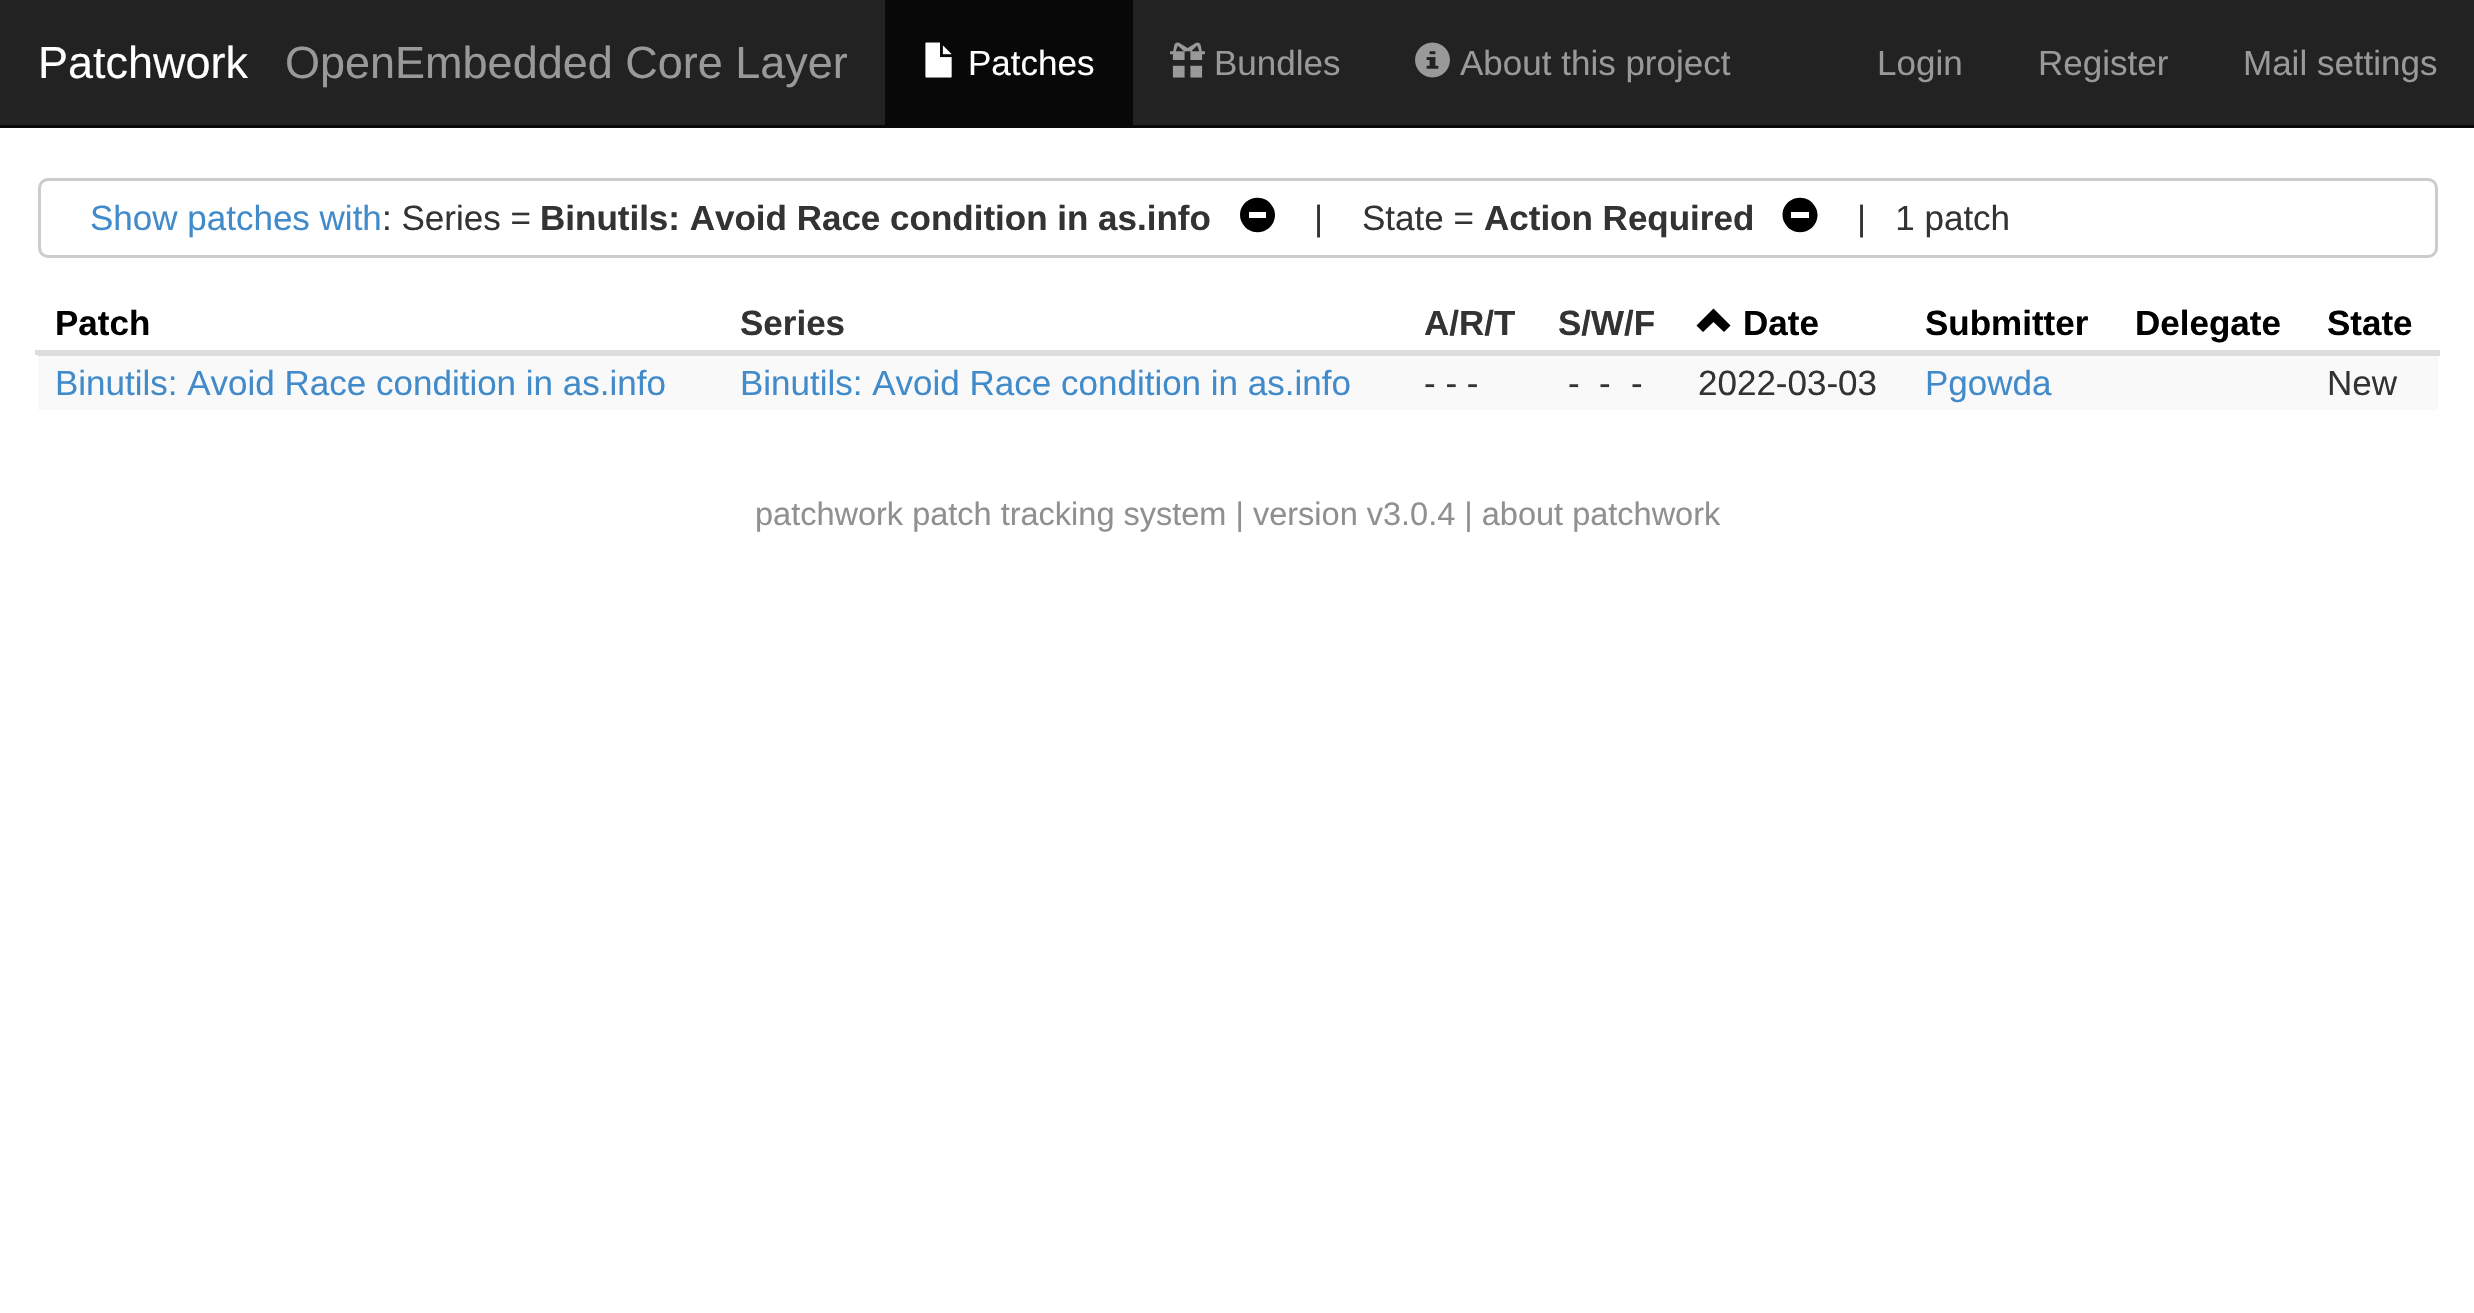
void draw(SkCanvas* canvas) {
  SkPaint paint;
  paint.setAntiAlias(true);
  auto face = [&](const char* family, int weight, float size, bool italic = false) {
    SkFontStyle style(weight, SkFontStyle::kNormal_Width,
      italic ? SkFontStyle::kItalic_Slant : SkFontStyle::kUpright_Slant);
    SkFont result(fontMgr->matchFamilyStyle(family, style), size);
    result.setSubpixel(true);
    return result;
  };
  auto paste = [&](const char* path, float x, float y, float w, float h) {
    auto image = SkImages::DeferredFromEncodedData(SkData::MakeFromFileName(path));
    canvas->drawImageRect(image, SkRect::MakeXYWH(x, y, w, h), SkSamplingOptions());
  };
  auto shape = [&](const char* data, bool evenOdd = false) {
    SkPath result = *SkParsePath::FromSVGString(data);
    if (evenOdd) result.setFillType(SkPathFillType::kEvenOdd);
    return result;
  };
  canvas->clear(0xffffffff);
  {
    const struct { float x, y, w, h; SkColor color; } items[] = {
      {0, 0, 2474, 125, 0xff222222},
      {0, 125, 2474, 3, 0xff080808},
      {885, 0, 248, 125, 0xff080808},
    };
    for (auto [x, y, w, h, color] : items) {
      paint.setColor(color);
      canvas->drawRect(SkRect::MakeXYWH(x, y, w, h), paint);
    }
  }
  paste("img/1.png", 925, 42, 27, 36);
  paste("img/2.png", 1170, 42, 35, 36);
  paste("img/3.png", 1415, 42, 35, 36);
  paint.setStroke(true);
  paint.setStrokeWidth(3);
  paint.setColor(0xffcccccc);
  canvas->drawRoundRect(SkRect::MakeXYWH(39.5f, 179.5f, 2397, 77), 8.5f, 8.5f, paint);
  paint.setStroke(false);
  paint.setColor(0xff000000);
  canvas->drawPath(shape("M1242.5 223.5C1240.5 220.5 1240 217.5 1240 214C1241 197 1264 191.5 1272.5 206.5C1274.5 209.5 1275 212.5 1275 216C1274 233 1251 238.5 1242.5 223.5ZM1249 218H1266V212H1249Z"), paint);
  canvas->drawPath(shape("M1785 223.5C1783 220.5 1782.5 217.5 1782.5 214C1783.5 197 1806.5 191.5 1815 206.5C1817 209.5 1817.5 212.5 1817.5 216C1816.5 233 1793.5 238.5 1785 223.5ZM1791 218H1809V212H1791Z"), paint);
  canvas->drawPath(shape("M1696.5 325.5L1703 332L1713.5 322L1724 332L1730.5 325.5L1713.5 308.5Z"), paint);
  {
    const struct { float x, y, w, h; SkColor color; } items[] = {
      {35, 350, 2405, 5, 0xffdddddd},
      {38, 356, 2400, 54, 0xfff9f9f9},
      {38, 355, 2402, 1, 0xffdddddd},
    };
    for (auto [x, y, w, h, color] : items) {
      paint.setColor(color);
      canvas->drawRect(SkRect::MakeXYWH(x, y, w, h), paint);
    }
  }
  auto f0 = face("Liberation Sans", 400, 45);
  paint.setColor(0xffffffff);
  canvas->drawString("Patchwork", 38, 78, f0, paint);
  paint.setColor(0xff999999);
  canvas->drawString("OpenEmbedded Core Layer", 285, 78, f0, paint);
  auto f1 = face("Liberation Sans", 400, 35);
  paint.setColor(0xffffffff);
  canvas->drawString("Patches", 968, 75, f1, paint);
  paint.setColor(0xff999999);
  {
    const struct { const char* s; float x, y; } items[] = {
      {"Bundles", 1214, 75},
      {"About this project", 1460, 75},
      {"Login", 1877, 75},
      {"Register", 2038, 75},
      {"Mail settings", 2243, 75},
    };
    for (auto [s, x, y] : items) {
      canvas->drawString(s, x, y, f1, paint);
    }
  }
  paint.setColor(0xff428bca);
  canvas->drawString("Show patches with", 90, 230, f1, paint);
  paint.setColor(0xff333333);
  canvas->drawString(": Series =", 382, 230, f1, paint);
  auto f2 = face("Liberation Sans", 700, 35);
  canvas->drawString("Binutils: Avoid Race condition in as.info", 540, 230, f2, paint);
  canvas->drawString("|", 1314, 230, f1, paint);
  canvas->drawString("State =", 1362, 230, f1, paint);
  canvas->drawString("Action Required", 1484, 230, f2, paint);
  canvas->drawString("|   1 patch", 1857, 230, f1, paint);
  paint.setColor(0xff000000);
  canvas->drawString("Patch", 55, 335, f2, paint);
  paint.setColor(0xff333333);
  {
    const struct { const char* s; float x, y; } items[] = {
      {"Series", 740, 335},
      {"A/R/T", 1424, 335},
      {"S/W/F", 1558, 335},
    };
    for (auto [s, x, y] : items) {
      canvas->drawString(s, x, y, f2, paint);
    }
  }
  paint.setColor(0xff000000);
  {
    const struct { const char* s; float x, y; } items[] = {
      {"Date", 1743, 335},
      {"Submitter", 1925, 335},
      {"Delegate", 2135, 335},
      {"State", 2327, 335},
    };
    for (auto [s, x, y] : items) {
      canvas->drawString(s, x, y, f2, paint);
    }
  }
  paint.setColor(0xff428bca);
  canvas->drawString("Binutils: Avoid Race condition in as.info", 55, 395, f1, paint);
  canvas->drawString("Binutils: Avoid Race condition in as.info", 740, 395, f1, paint);
  paint.setColor(0xff333333);
  {
    const struct { const char* s; float x, y; } items[] = {
      {"- - -", 1424, 395},
      {"-", 1568, 395},
      {"-", 1599, 395},
      {"-", 1631, 395},
      {"2022-03-03", 1698, 395},
    };
    for (auto [s, x, y] : items) {
      canvas->drawString(s, x, y, f1, paint);
    }
  }
  paint.setColor(0xff428bca);
  canvas->drawString("Pgowda", 1925, 395, f1, paint);
  paint.setColor(0xff333333);
  canvas->drawString("New", 2327, 395, f1, paint);
  auto f3 = face("Liberation Sans", 400, 32.5f);
  paint.setColor(0xff909090);
  canvas->drawString("patchwork patch tracking system | version v3.0.4 | about patchwork", 755, 525, f3, paint);
}
